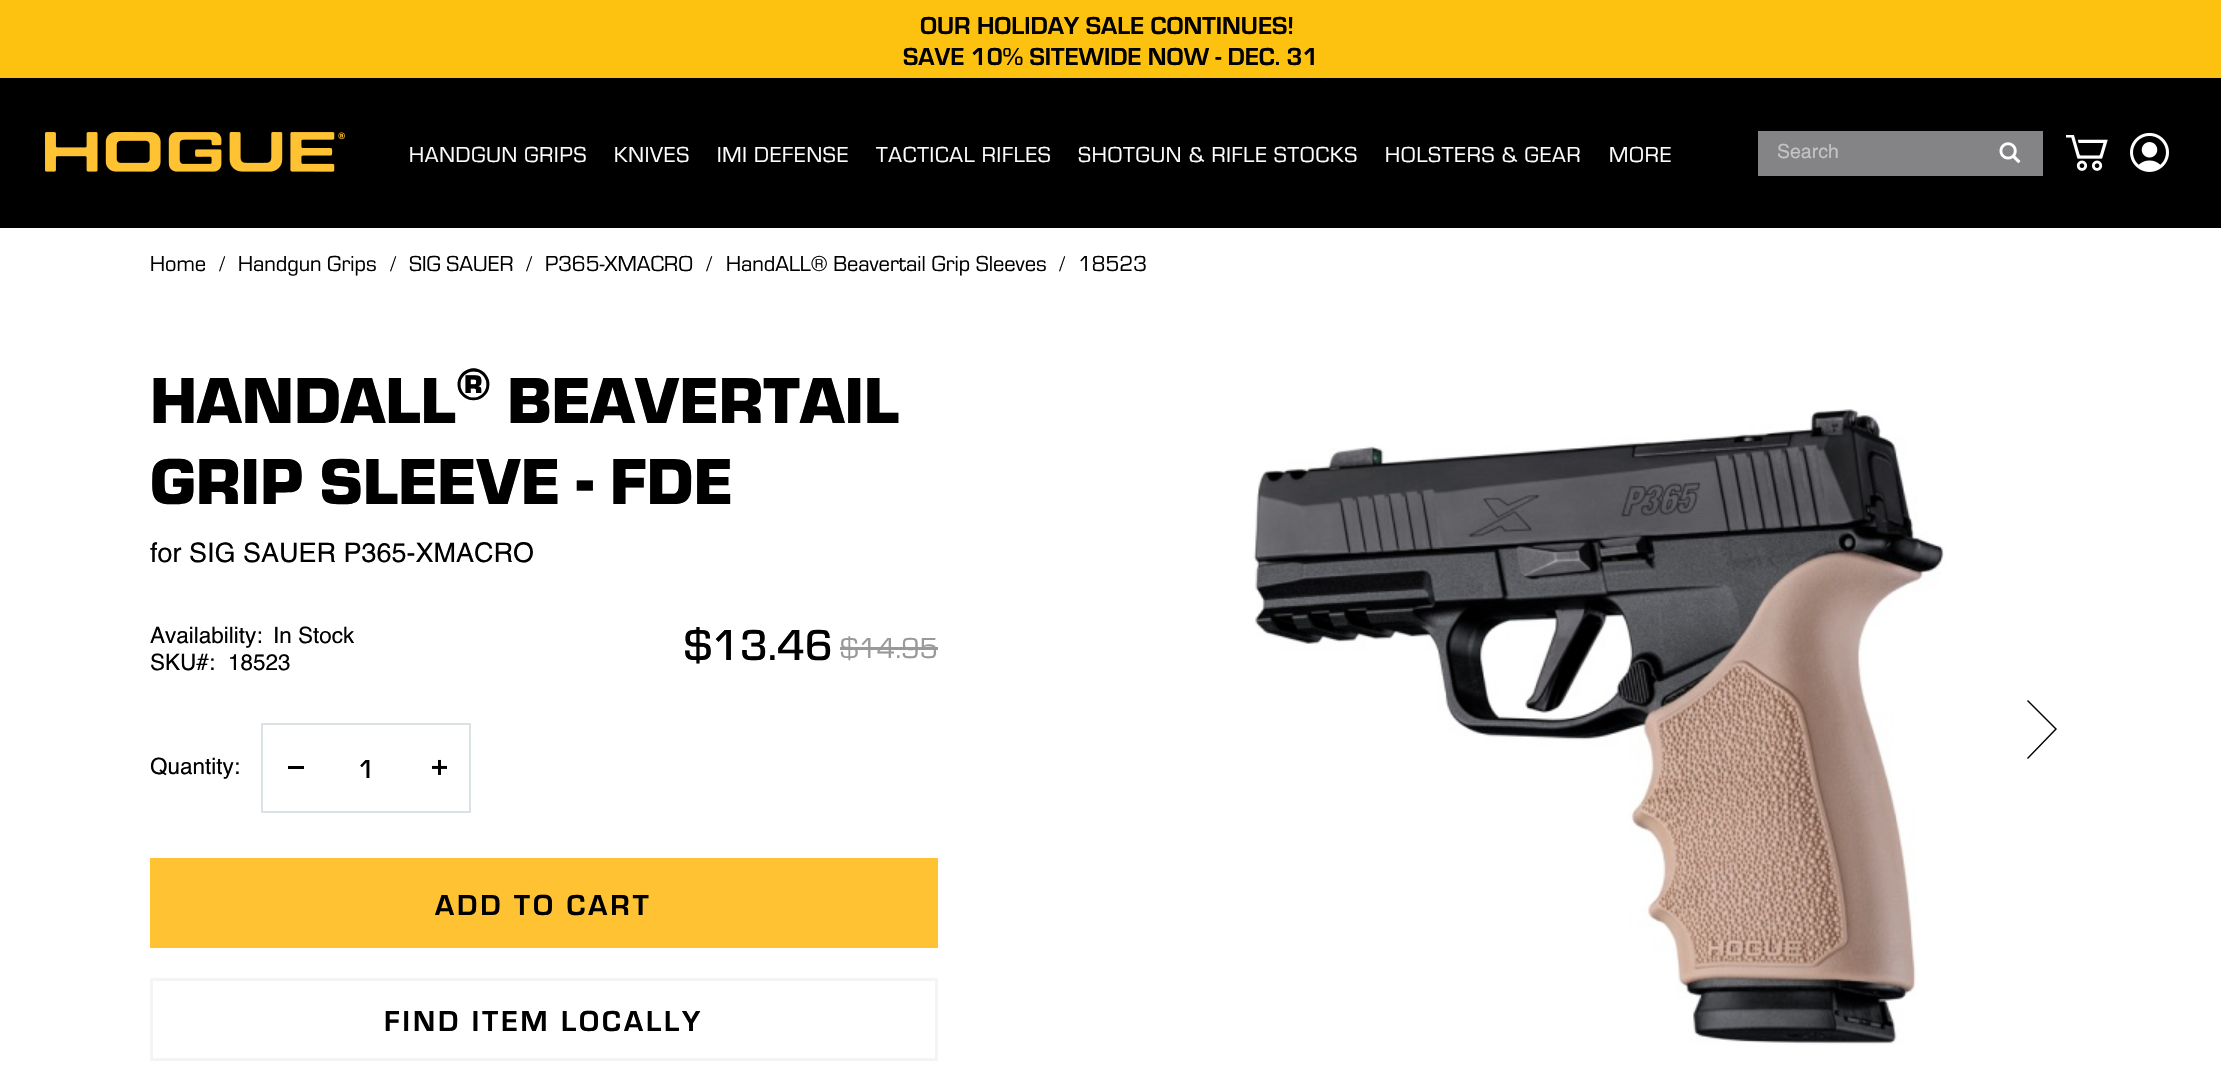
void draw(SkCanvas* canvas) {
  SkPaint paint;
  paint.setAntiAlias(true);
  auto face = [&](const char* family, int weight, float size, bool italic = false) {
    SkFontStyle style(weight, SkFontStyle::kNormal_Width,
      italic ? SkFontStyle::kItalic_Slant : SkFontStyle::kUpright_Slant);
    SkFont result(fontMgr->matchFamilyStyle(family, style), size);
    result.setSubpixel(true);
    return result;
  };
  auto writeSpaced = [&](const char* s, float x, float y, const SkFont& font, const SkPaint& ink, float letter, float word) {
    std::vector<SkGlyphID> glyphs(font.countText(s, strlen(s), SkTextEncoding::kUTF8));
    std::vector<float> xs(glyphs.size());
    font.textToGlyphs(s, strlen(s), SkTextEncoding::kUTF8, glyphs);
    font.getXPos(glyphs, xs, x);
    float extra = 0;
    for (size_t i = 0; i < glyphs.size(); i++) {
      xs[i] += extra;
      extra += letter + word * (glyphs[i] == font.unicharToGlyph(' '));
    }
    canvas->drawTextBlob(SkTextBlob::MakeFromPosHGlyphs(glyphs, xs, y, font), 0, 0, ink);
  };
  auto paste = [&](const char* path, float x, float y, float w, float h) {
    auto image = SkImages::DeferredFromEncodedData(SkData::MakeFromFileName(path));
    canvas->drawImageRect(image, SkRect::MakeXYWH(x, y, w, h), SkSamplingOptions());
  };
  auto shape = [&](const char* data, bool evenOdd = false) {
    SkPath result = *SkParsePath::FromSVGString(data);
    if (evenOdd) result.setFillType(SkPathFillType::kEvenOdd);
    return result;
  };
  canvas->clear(0xffffffff);
  paint.setColor(0xfffdc210);
  canvas->drawRect(SkRect::MakeXYWH(0, 0, 2221, 78), paint);
  paint.setColor(0xff000000);
  canvas->drawRect(SkRect::MakeXYWH(0, 78, 2221, 150), paint);
  paste("img/1.png", 45, 132, 300, 40);
  paint.setColor(0xff848486);
  canvas->drawRect(SkRect::MakeXYWH(1758, 131, 285, 45), paint);
  paste("img/2.png", 1999, 142, 22, 22);
  paste("img/3.png", 2066, 135, 42, 36);
  paste("img/4.png", 2130, 132, 39, 40);
  paint.setColor(0xff999999);
  canvas->drawRect(SkRect::MakeXYWH(840, 647, 98, 3), paint);
  paint.setStroke(true);
  paint.setStrokeWidth(2);
  paint.setColor(0xffdae2e6);
  canvas->drawRect(SkRect::MakeXYWH(262, 724, 208, 88), paint);
  paint.setStroke(false);
  paint.setColor(0xff000000);
  canvas->drawRect(SkRect::MakeXYWH(288, 766, 16, 3), paint);
  paste("img/5.png", 432, 759, 15, 16);
  paint.setColor(0xffffc233);
  canvas->drawRect(SkRect::MakeXYWH(150, 858, 788, 90), paint);
  paint.setStroke(true);
  paint.setStrokeWidth(3);
  paint.setColor(0xfff4f4f4);
  canvas->drawRect(SkRect::MakeXYWH(151.5f, 979.5f, 785, 80), paint);
  paste("img/6.png", 1253, 409, 692, 636);
  paint.setStroke(false);
  paint.setColor(0xff000000);
  canvas->drawPath(shape("M2028 759L2027 758L2055 729L2027 701L2028 700L2057 729Z"), paint);
  auto f0 = face("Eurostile", 700, 25.5f);
  canvas->drawString("OUR HOLIDAY SALE CONTINUES!", 920, 34, f0, paint);
  canvas->drawString("SAVE 10% SITEWIDE NOW - DEC. 31", 903, 65, f0, paint);
  auto f1 = face("Eurostile", 400, 22.5f);
  paint.setColor(0xffffffff);
  {
    const struct { const char* s; float x, y; } items[] = {
      {"HANDGUN GRIPS", 409, 162},
      {"KNIVES", 614, 162},
      {"IMI DEFENSE", 717, 162},
      {"TACTICAL RIFLES", 876, 162},
      {"SHOTGUN & RIFLE STOCKS", 1078, 162},
      {"HOLSTERS & GEAR", 1385, 162},
      {"MORE", 1609, 162},
    };
    for (auto [s, x, y] : items) {
      writeSpaced(s, x, y, f1, paint, 0.75f, 0);
    }
  }
  auto f2 = face("Helvetica", 400, 19.5f);
  paint.setColor(0xffc3c3c3);
  canvas->drawString("Search", 1777, 158, f2, paint);
  paint.setColor(0xff000000);
  canvas->drawString("Home", 150, 271, f1, paint);
  auto f3 = face("Liberation Serif", 400, 22.5f);
  canvas->drawString("/", 219, 271, f3, paint);
  canvas->drawString("Handgun Grips", 238, 271, f1, paint);
  canvas->drawString("/", 390, 271, f3, paint);
  canvas->drawString("SIG SAUER", 409, 271, f1, paint);
  canvas->drawString("/", 526, 271, f3, paint);
  canvas->drawString("P365-XMACRO", 545, 271, f1, paint);
  canvas->drawString("/", 706, 271, f3, paint);
  canvas->drawString("HandALL® Beavertail Grip Sleeves", 726, 271, f1, paint);
  canvas->drawString("/", 1059, 271, f3, paint);
  canvas->drawString("18523", 1078, 271, f1, paint);
  auto f4 = face("Eurostile", 900, 67.5f);
  canvas->drawString("HANDALL", 150, 423, f4, paint);
  auto f5 = face("Eurostile", 900, 47);
  canvas->drawString("®", 456, 400, f5, paint);
  canvas->drawString("BEAVERTAIL", 507, 423, f4, paint);
  canvas->drawString("GRIP SLEEVE - FDE", 150, 504, f4, paint);
  auto f6 = face("Helvetica", 400, 27);
  canvas->drawString("for SIG SAUER P365-XMACRO", 150, 562, f6, paint);
  auto f7 = face("Helvetica", 400, 22.5f);
  {
    const struct { const char* s; float x, y; } items[] = {
      {"Availability:", 150, 643},
      {"In Stock", 273, 643},
      {"SKU#:", 150, 670},
      {"18523", 228, 670},
    };
    for (auto [s, x, y] : items) {
      canvas->drawString(s, x, y, f7, paint);
    }
  }
  auto f8 = face("Eurostile", 500, 45);
  canvas->drawString("$13.46", 684, 660, f8, paint);
  auto f9 = face("Eurostile", 400, 30);
  paint.setColor(0xff999999);
  canvas->drawString("$14.95", 840, 658, f9, paint);
  paint.setColor(0xff000000);
  canvas->drawString("Quantity:", 150, 774, f7, paint);
  auto f10 = face("Eurostile", 500, 27);
  canvas->drawString("1", 358, 778, f10, paint);
  auto f11 = face("Eurostile", 700, 30);
  writeSpaced("ADD TO CART", 435, 915, f11, paint, 3, 0);
  writeSpaced("FIND ITEM LOCALLY", 384, 1031, f11, paint, 3, 0);
}
